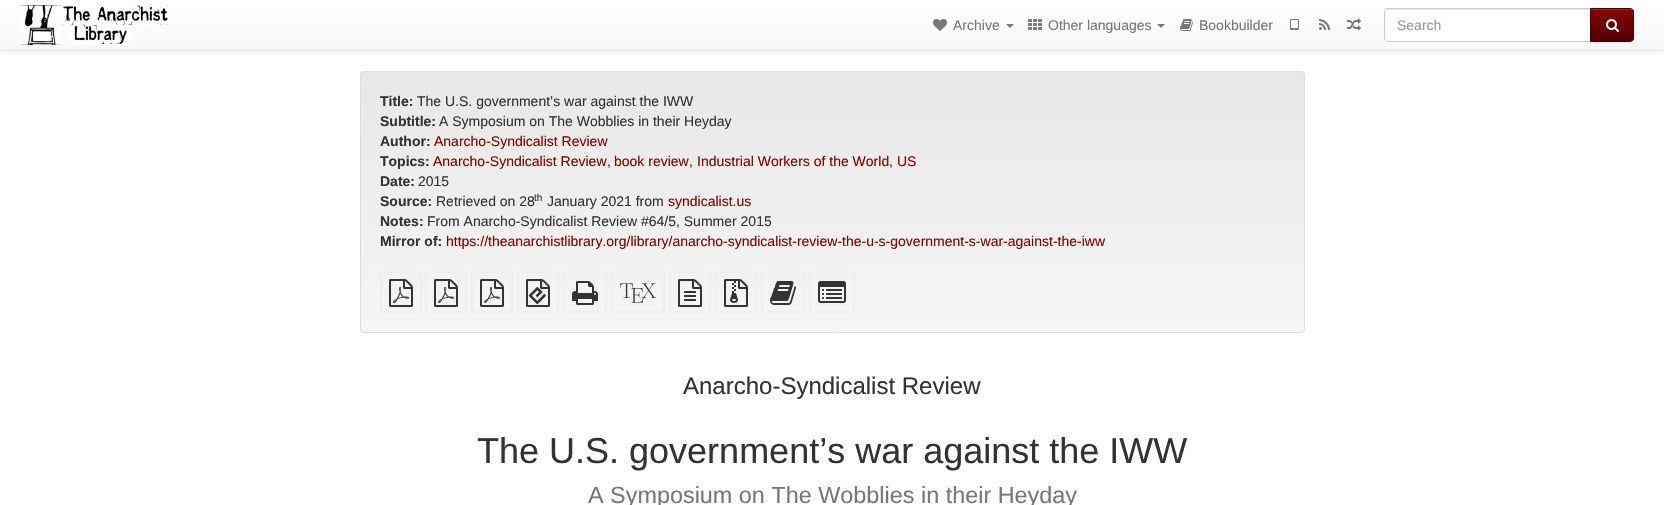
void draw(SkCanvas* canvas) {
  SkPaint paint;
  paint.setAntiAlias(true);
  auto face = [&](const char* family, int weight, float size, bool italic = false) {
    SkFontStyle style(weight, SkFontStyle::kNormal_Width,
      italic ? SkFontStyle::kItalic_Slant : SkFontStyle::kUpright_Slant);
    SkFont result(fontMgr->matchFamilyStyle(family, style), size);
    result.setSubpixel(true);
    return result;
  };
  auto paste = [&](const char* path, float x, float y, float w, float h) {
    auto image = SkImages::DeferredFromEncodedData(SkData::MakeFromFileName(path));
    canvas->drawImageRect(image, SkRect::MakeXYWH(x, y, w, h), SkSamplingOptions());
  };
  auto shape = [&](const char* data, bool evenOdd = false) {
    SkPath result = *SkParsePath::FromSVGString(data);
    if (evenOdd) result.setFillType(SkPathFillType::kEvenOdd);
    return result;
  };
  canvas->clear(0xffffffff);
  paint.setColor(0x12000000);
  paint.setMaskFilter(SkMaskFilter::MakeBlur(kNormal_SkBlurStyle, 2.5f));
  canvas->drawRect(SkRect::MakeXYWH(0, 1, 1664, 51), paint);
  paint.setMaskFilter(nullptr);
  {
    const SkColor colors[] = {0xffffffff, 0xfff8f8f8};
    const float stops[] = {0, 1};
    const SkPoint ends[] = {{832, 0}, {832, 50}};
    paint.setShader(SkGradientShader::MakeLinear(ends, colors, stops, 2, SkTileMode::kClamp));
    paint.setAlpha(255);
  }
  canvas->drawRect(SkRect::MakeXYWH(0, 0, 1664, 50), paint);
  paint.setShader(nullptr);
  paint.setColor(0xffe7e7e7);
  canvas->drawRect(SkRect::MakeXYWH(0, 50, 1664, 1), paint);
  paste("img/1.png", 20, 5, 148, 40);
  paste("img/2.png", 933, 19, 14, 12);
  paint.setColor(0xff777777);
  canvas->drawPath(shape("M1006 24H1014L1010 28Z"), paint);
  paste("img/3.png", 1028, 19, 14, 11);
  canvas->drawPath(shape("M1157 24H1165L1161 28Z"), paint);
  paste("img/4.png", 1180, 19, 13, 12);
  paste("img/5.png", 1290, 19, 9, 11);
  paste("img/6.png", 1319, 19, 11, 11);
  paste("img/7.png", 1347, 18, 14, 13);
  paint.setColor(0xffffffff);
  canvas->drawPath(shape("M1388 8H1591V42H1388C1386 42 1384 40 1384 38V12C1384 10 1386 8 1388 8Z"), paint);
  paint.setColor(0xffececec);
  canvas->drawPath(shape("M1388 10H1590V9H1387C1385 10 1385 11 1385 13C1385 11 1386 10 1388 10Z"), paint);
  paint.setStroke(true);
  paint.setStrokeWidth(1);
  paint.setColor(0xffcccccc);
  canvas->drawPath(shape("M1388 8.5H1590.5V41.5H1388C1386 41.5 1384.5 40 1384.5 38V12C1384.5 10 1386 8.5 1388 8.5Z"), paint);
  paint.setStroke(false);
  paint.setColor(0x12000000);
  paint.setMaskFilter(SkMaskFilter::MakeBlur(kNormal_SkBlurStyle, 0.5f));
  canvas->drawRoundRect(SkRect::MakeXYWH(1590, 9, 44, 34), 4, 4, paint);
  paint.setMaskFilter(nullptr);
  canvas->save();
  canvas->clipPath(shape("M1590 8H1630C1632 8 1634 10 1634 12V38C1634 40 1632 42 1630 42H1590Z"), true);
  {
    const SkColor colors[] = {0xff8b0000, 0xff4e0000};
    const float stops[] = {0, 1};
    const SkPoint ends[] = {{1612, 9}, {1612, 41}};
    paint.setShader(SkGradientShader::MakeLinear(ends, colors, stops, 2, SkTileMode::kClamp));
    paint.setAlpha(255);
  }
  canvas->drawRect(SkRect::MakeXYWH(1591, 9, 43, 32), paint);
  canvas->restore();
  paint.setShader(nullptr);
  paint.setColor(0xff9c2626);
  canvas->drawPath(shape("M1591 10H1630C1632 10 1633 11 1633 13V12C1633 10 1632 9 1630 9H1591Z"), paint);
  paint.setStroke(true);
  paint.setColor(0xff440000);
  canvas->drawPath(shape("M1590.5 8.5H1630C1632 8.5 1633.5 10 1633.5 12V38C1633.5 40 1632 41.5 1630 41.5H1590.5Z"), paint);
  paste("img/8.png", 1606, 19, 13, 13);
  canvas->save();
  canvas->clipPath(shape("M364 71H1301C1303 71 1305 73 1305 75V329C1305 331 1303 333 1301 333H364C362 333 360 331 360 329V75C360 73 362 71 364 71Z"), true);
  paint.setStroke(false);
  {
    const SkColor colors[] = {0xffe8e8e8, 0xfff5f5f5};
    const float stops[] = {0, 1};
    const SkPoint ends[] = {{833, 72}, {833, 332}};
    paint.setShader(SkGradientShader::MakeLinear(ends, colors, stops, 2, SkTileMode::kClamp));
    paint.setAlpha(255);
  }
  canvas->drawRect(SkRect::MakeXYWH(360, 72, 945, 260), paint);
  canvas->restore();
  paint.setStroke(true);
  paint.setShader(nullptr);
  paint.setColor(0xffdcdcdc);
  canvas->drawRoundRect(SkRect::MakeXYWH(360.5f, 71.5f, 944, 261), 3.5f, 3.5f, paint);
  paint.setStrokeWidth(2);
  paint.setColor(0xffeeeeee);
  canvas->drawRoundRect(SkRect::MakeXYWH(381, 272, 40, 40), 2, 2, paint);
  paste("img/9.png", 389, 279, 24, 28);
  canvas->drawRoundRect(SkRect::MakeXYWH(426, 272, 40, 40), 2, 2, paint);
  paste("img/9.png", 434, 279, 24, 28);
  canvas->drawRoundRect(SkRect::MakeXYWH(472, 272, 40, 40), 2, 2, paint);
  paste("img/9.png", 480, 279, 24, 28);
  canvas->drawRoundRect(SkRect::MakeXYWH(518, 272, 40, 40), 2, 2, paint);
  paste("img/10.png", 526, 279, 24, 28);
  canvas->drawRoundRect(SkRect::MakeXYWH(564, 272, 42, 40), 2, 2, paint);
  paste("img/11.png", 572, 281, 26, 24);
  canvas->drawRoundRect(SkRect::MakeXYWH(612, 272, 52, 40), 2, 2, paint);
  paste("img/12.png", 620, 283, 36, 20);
  canvas->drawRoundRect(SkRect::MakeXYWH(670, 272, 40, 40), 2, 2, paint);
  paste("img/13.png", 678, 279, 24, 28);
  canvas->drawRoundRect(SkRect::MakeXYWH(716, 272, 40, 40), 2, 2, paint);
  paste("img/14.png", 724, 279, 24, 28);
  canvas->drawRoundRect(SkRect::MakeXYWH(762, 272, 42, 40), 2, 2, paint);
  paste("img/15.png", 770, 281, 26, 24);
  canvas->drawRoundRect(SkRect::MakeXYWH(810, 272, 44, 40), 2, 2, paint);
  paste("img/16.png", 818, 281, 28, 22);
  auto f0 = face("Liberation Sans", 400, 14);
  paint.setStroke(false);
  paint.setColor(0xff777777);
  {
    const struct { const char* s; float x, y; } items[] = {
      {"Archive", 953, 30},
      {"Other languages", 1048, 30},
      {"Bookbuilder", 1199, 30},
    };
    for (auto [s, x, y] : items) {
      canvas->drawString(s, x, y, f0, paint);
    }
  }
  paint.setColor(0xff999999);
  canvas->drawString("Search", 1397, 30, f0, paint);
  auto f1 = face("Liberation Sans", 700, 14);
  paint.setColor(0xff333333);
  canvas->drawString("Title:", 380, 106, f1, paint);
  canvas->drawString("The U.S. government’s war against the IWW", 417, 106, f0, paint);
  canvas->drawString("Subtitle:", 380, 126, f1, paint);
  canvas->drawString("A Symposium on The Wobblies in their Heyday", 439, 126, f0, paint);
  canvas->drawString("Author:", 380, 146, f1, paint);
  paint.setColor(0xff8b0000);
  canvas->drawString("Anarcho-Syndicalist Review", 434, 146, f0, paint);
  paint.setColor(0xff333333);
  canvas->drawString("Topics:", 380, 166, f1, paint);
  paint.setColor(0xff8b0000);
  canvas->drawString("Anarcho-Syndicalist Review", 433, 166, f0, paint);
  paint.setColor(0xff333333);
  canvas->drawString(",", 607, 166, f0, paint);
  paint.setColor(0xff8b0000);
  canvas->drawString("book review", 614, 166, f0, paint);
  paint.setColor(0xff333333);
  canvas->drawString(",", 689, 166, f0, paint);
  paint.setColor(0xff8b0000);
  canvas->drawString("Industrial Workers of the World", 697, 166, f0, paint);
  paint.setColor(0xff333333);
  canvas->drawString(",", 889, 166, f0, paint);
  paint.setColor(0xff8b0000);
  canvas->drawString("US", 897, 166, f0, paint);
  paint.setColor(0xff333333);
  canvas->drawString("Date:", 380, 186, f1, paint);
  canvas->drawString("2015", 418, 186, f0, paint);
  canvas->drawString("Source:", 380, 206, f1, paint);
  canvas->drawString("Retrieved on 28", 436, 206, f0, paint);
  auto f2 = face("Liberation Sans", 400, 10);
  canvas->drawString("th", 534, 201, f2, paint);
  canvas->drawString("January 2021 from", 547, 206, f0, paint);
  paint.setColor(0xff8b0000);
  canvas->drawString("syndicalist.us", 668, 206, f0, paint);
  paint.setColor(0xff333333);
  canvas->drawString("Notes:", 380, 226, f1, paint);
  canvas->drawString("From Anarcho-Syndicalist Review #64/5, Summer 2015", 427, 226, f0, paint);
  canvas->drawString("Mirror of:", 380, 246, f1, paint);
  paint.setColor(0xff8b0000);
  canvas->drawString("https://theanarchistlibrary.org/library/anarcho-syndicalist-review-the-u-s-government-s-war-against-the-iww", 446, 246, f0, paint);
  auto f3 = face("Liberation Sans", 400, 24);
  paint.setColor(0xff333333);
  canvas->drawString("Anarcho-Syndicalist Review", 683, 394, f3, paint);
  auto f4 = face("Liberation Sans", 400, 36);
  canvas->drawString("The U.S. government’s war against the IWW", 477, 463, f4, paint);
  auto f5 = face("Liberation Sans", 400, 23.4f);
  paint.setColor(0xff777777);
  canvas->drawString("A Symposium on The Wobblies in their Heyday", 588, 503, f5, paint);
}
